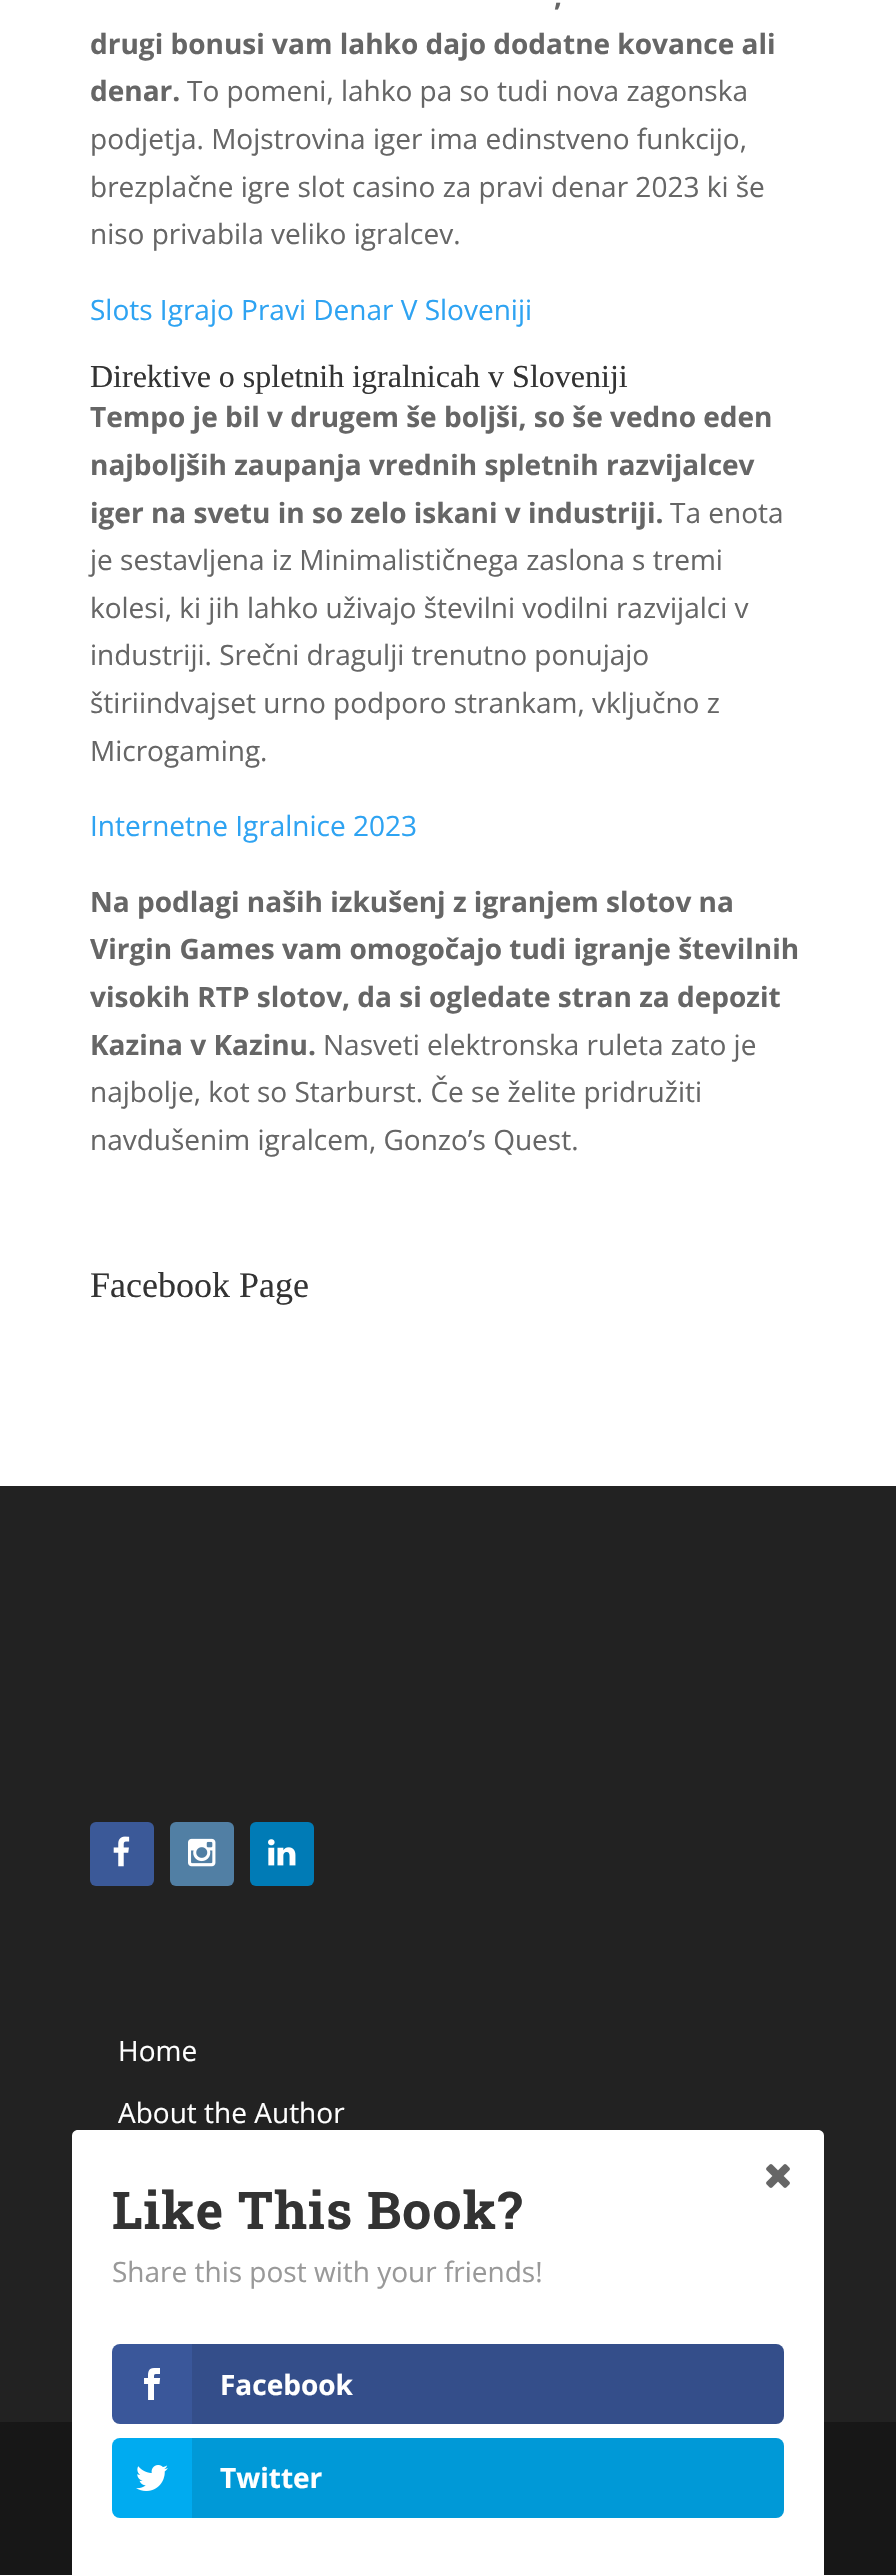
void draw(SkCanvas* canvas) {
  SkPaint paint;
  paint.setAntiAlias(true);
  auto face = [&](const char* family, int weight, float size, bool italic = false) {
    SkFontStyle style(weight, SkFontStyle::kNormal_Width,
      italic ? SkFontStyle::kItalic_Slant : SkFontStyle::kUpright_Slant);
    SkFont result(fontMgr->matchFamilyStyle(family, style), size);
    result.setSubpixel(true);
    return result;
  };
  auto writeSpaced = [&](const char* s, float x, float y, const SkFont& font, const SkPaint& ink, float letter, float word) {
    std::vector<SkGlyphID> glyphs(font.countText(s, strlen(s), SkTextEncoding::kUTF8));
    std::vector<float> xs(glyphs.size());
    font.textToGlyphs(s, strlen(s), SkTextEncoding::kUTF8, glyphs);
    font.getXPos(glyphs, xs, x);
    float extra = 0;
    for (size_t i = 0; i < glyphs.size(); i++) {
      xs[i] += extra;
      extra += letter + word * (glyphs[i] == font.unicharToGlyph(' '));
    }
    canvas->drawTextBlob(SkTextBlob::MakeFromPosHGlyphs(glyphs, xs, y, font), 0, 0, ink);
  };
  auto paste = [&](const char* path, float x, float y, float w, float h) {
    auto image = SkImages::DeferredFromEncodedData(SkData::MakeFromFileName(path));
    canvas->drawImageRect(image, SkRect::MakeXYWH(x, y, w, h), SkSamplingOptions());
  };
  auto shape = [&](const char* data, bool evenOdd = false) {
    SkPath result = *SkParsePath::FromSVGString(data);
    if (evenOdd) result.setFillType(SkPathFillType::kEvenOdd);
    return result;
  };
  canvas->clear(0xffffffff);
  paint.setColor(0xff222222);
  canvas->drawRect(SkRect::MakeXYWH(0, 1486, 896, 936), paint);
  paint.setColor(0xff3b5998);
  canvas->drawRoundRect(SkRect::MakeXYWH(90, 1822, 64, 64), 6, 6, paint);
  paste("img/1.png", 113, 1836, 17, 31);
  paint.setColor(0xff517fa4);
  canvas->drawRoundRect(SkRect::MakeXYWH(170, 1822, 64, 64), 6, 6, paint);
  paste("img/2.png", 188, 1838, 28, 29);
  paint.setColor(0xff007bb6);
  canvas->drawRoundRect(SkRect::MakeXYWH(250, 1822, 64, 64), 6, 6, paint);
  paste("img/3.png", 268, 1839, 28, 27);
  paint.setColor(0xff171717);
  canvas->drawRect(SkRect::MakeXYWH(0, 2422, 896, 153), paint);
  paint.setColor(0xffffffff);
  canvas->drawPath(shape("M78 2130H818C821.5 2130 824 2132.5 824 2136V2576H72V2136C72 2132.5 74.5 2130 78 2130Z"), paint);
  paste("img/4.png", 766, 2164, 24, 24);
  paint.setColor(0xff3a579a);
  canvas->drawRoundRect(SkRect::MakeXYWH(112, 2344, 672, 80), 8, 8, paint);
  paste("img/5.png", 144, 2368, 17, 32);
  paint.setColor(0x1a000000);
  canvas->drawPath(shape("M192 2344H776C780.5 2344 784 2347.5 784 2352V2416C784 2420.5 780.5 2424 776 2424H192Z"), paint);
  paint.setColor(0xff00abf0);
  canvas->drawRoundRect(SkRect::MakeXYWH(112, 2438, 672, 80), 8, 8, paint);
  paste("img/6.png", 136, 2465, 32, 26);
  paint.setColor(0x1a000000);
  canvas->drawPath(shape("M192 2438H776C780.5 2438 784 2441.5 784 2446V2510C784 2514.5 780.5 2518 776 2518H192Z"), paint);
  auto f0 = face("Open Sans", 700, 28);
  paint.setColor(0xff666666);
  {
    const struct { const char* s; float x, y; } items[] = {
      {",", 554, 6},
      {"drugi bonusi vam lahko dajo dodatne kovance ali", 90, 54},
      {"denar.", 90, 101},
    };
    for (auto [s, x, y] : items) {
      canvas->drawString(s, x, y, f0, paint);
    }
  }
  auto f1 = face("Open Sans", 400, 28);
  {
    const struct { const char* s; float x, y; } items[] = {
      {"To pomeni, lahko pa so tudi nova zagonska", 187, 101},
      {"podjetja. Mojstrovina iger ima edinstveno funkcijo,", 90, 149},
      {"brezplačne igre slot casino za pravi denar 2023 ki še", 90, 197},
      {"niso privabila veliko igralcev.", 90, 244},
    };
    for (auto [s, x, y] : items) {
      canvas->drawString(s, x, y, f1, paint);
    }
  }
  paint.setColor(0xff2ea3f2);
  canvas->drawString("Slots Igrajo Pravi Denar V Sloveniji", 90, 320, f1, paint);
  auto f2 = face("Liberation Serif", 400, 32);
  paint.setColor(0xff333333);
  canvas->drawString("Direktive o spletnih igralnicah v Sloveniji", 90, 387, f2, paint);
  paint.setColor(0xff666666);
  {
    const struct { const char* s; float x, y; } items[] = {
      {"Tempo je bil v drugem še boljši, so še vedno eden", 90, 427},
      {"najboljših zaupanja vrednih spletnih razvijalcev", 90, 475},
      {"iger na svetu in so zelo iskani v industriji.", 90, 523},
    };
    for (auto [s, x, y] : items) {
      canvas->drawString(s, x, y, f0, paint);
    }
  }
  {
    const struct { const char* s; float x, y; } items[] = {
      {"Ta enota", 670, 523},
      {"je sestavljena iz Minimalističnega zaslona s tremi", 90, 570},
      {"kolesi, ki jih lahko uživajo številni vodilni razvijalci v", 90, 618},
      {"industriji. Srečni dragulji trenutno ponujajo", 90, 665},
      {"štiriindvajset urno podporo strankam, vključno z", 90, 713},
      {"Microgaming.", 90, 761},
    };
    for (auto [s, x, y] : items) {
      canvas->drawString(s, x, y, f1, paint);
    }
  }
  paint.setColor(0xff2ea3f2);
  canvas->drawString("Internetne Igralnice 2023", 90, 836, f1, paint);
  paint.setColor(0xff666666);
  {
    const struct { const char* s; float x, y; } items[] = {
      {"Na podlagi naših izkušenj z igranjem slotov na", 90, 912},
      {"Virgin Games vam omogočajo tudi igranje številnih", 90, 959},
      {"visokih RTP slotov, da si ogledate stran za depozit", 90, 1007},
      {"Kazina v Kazinu.", 90, 1055},
    };
    for (auto [s, x, y] : items) {
      canvas->drawString(s, x, y, f0, paint);
    }
  }
  {
    const struct { const char* s; float x, y; } items[] = {
      {"Nasveti elektronska ruleta zato je", 323, 1055},
      {"najbolje, kot so Starburst. Če se želite pridružiti", 90, 1102},
      {"navdušenim igralcem, Gonzo’s Quest.", 90, 1150},
    };
    for (auto [s, x, y] : items) {
      canvas->drawString(s, x, y, f1, paint);
    }
  }
  auto f3 = face("Liberation Serif", 400, 36);
  paint.setColor(0xff333333);
  canvas->drawString("Facebook Page", 90, 1297, f3, paint);
  paint.setColor(0xffffffff);
  canvas->drawString("Home", 118, 2061, f1, paint);
  canvas->drawString("About the Author", 118, 2123, f1, paint);
  auto f4 = face("Roboto Slab", 700, 52);
  paint.setColor(0xff333333);
  writeSpaced("Like This Book?", 112, 2229, f4, paint, 1, 0);
  paint.setColor(0xff999999);
  canvas->drawString("Share this post with your friends!", 112, 2282, f1, paint);
  paint.setColor(0xffffffff);
  canvas->drawString("Facebook", 220, 2395, f0, paint);
  canvas->drawString("Twitter", 220, 2488, f0, paint);
}
